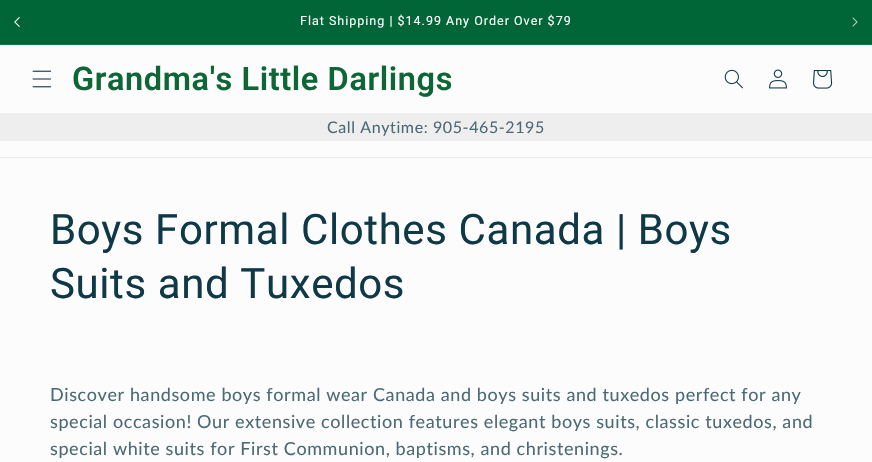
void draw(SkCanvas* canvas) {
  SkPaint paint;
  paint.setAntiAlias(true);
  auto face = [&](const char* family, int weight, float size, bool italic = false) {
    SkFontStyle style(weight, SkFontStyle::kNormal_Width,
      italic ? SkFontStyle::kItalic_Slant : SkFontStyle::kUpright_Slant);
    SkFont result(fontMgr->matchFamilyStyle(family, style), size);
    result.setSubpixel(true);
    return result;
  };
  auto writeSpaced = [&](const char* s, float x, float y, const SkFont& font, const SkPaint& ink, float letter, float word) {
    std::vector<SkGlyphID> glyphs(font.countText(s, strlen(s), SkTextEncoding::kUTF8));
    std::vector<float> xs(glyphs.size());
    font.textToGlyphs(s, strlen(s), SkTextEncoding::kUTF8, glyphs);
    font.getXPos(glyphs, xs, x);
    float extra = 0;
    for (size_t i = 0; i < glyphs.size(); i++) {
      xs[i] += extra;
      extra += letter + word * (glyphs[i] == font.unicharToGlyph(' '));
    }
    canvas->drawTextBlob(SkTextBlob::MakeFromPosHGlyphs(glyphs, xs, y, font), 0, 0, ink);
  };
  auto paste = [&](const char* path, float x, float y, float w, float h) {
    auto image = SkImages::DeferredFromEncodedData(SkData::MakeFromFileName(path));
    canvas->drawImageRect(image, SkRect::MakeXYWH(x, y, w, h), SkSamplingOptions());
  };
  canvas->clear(0xfffcfcfc);
  paint.setColor(0xff006637);
  canvas->drawRect(SkRect::MakeXYWH(0, 0, 872, 44), paint);
  paint.setColor(0xff147247);
  canvas->drawRect(SkRect::MakeXYWH(0, 44, 872, 1), paint);
  paste("img/1.png", 14, 17, 6, 10);
  paste("img/2.png", 852, 17, 6, 10);
  paint.setColor(0xffe9ecee);
  canvas->drawRect(SkRect::MakeXYWH(0, 157, 872, 1), paint);
  paste("img/3.png", 32, 70, 20, 18);
  paste("img/4.png", 724, 69, 19, 20);
  paste("img/5.png", 769, 69, 18, 20);
  paste("img/6.png", 813, 70, 20, 19);
  paint.setColor(0xffeeeeee);
  canvas->drawRect(SkRect::MakeXYWH(0, 113, 872, 28), paint);
  auto f0 = face("Roboto", 400, 12.5f);
  paint.setColor(0xfffcfcfc);
  writeSpaced("Flat Shipping | $14.99 Any Order Over $79", 300, 25, f0, paint, 1, 0);
  auto f1 = face("Roboto", 600, 32.5f);
  paint.setColor(0xff0e6637);
  writeSpaced("Grandma's Little Darlings", 72, 90, f1, paint, 0.6f, 0);
  auto f2 = face("Lato", 400, 16);
  paint.setColor(0xff4b6a75);
  writeSpaced("Call Anytime: 905-465-2195", 327, 133, f2, paint, 0.6f, 0);
  auto f3 = face("Roboto", 400, 42);
  paint.setColor(0xff103948);
  writeSpaced("Boys Formal Clothes Canada | Boys", 50, 244, f3, paint, 0.6f, 0);
  writeSpaced("Suits and Tuxedos", 50, 298, f3, paint, 0.6f, 0);
  auto f4 = face("Lato", 400, 18);
  paint.setColor(0xff4b6a75);
  {
    const struct { const char* s; float x, y; } items[] = {
      {"Discover handsome boys formal wear Canada and boys suits and tuxedos perfect for any", 50, 401},
      {"special occasion! Our extensive collection features elegant boys suits, classic tuxedos, and", 50, 428},
      {"special white suits for First Communion, baptisms, and christenings.", 50, 455},
    };
    for (auto [s, x, y] : items) {
      writeSpaced(s, x, y, f4, paint, 0.6f, 0);
    }
  }
}
